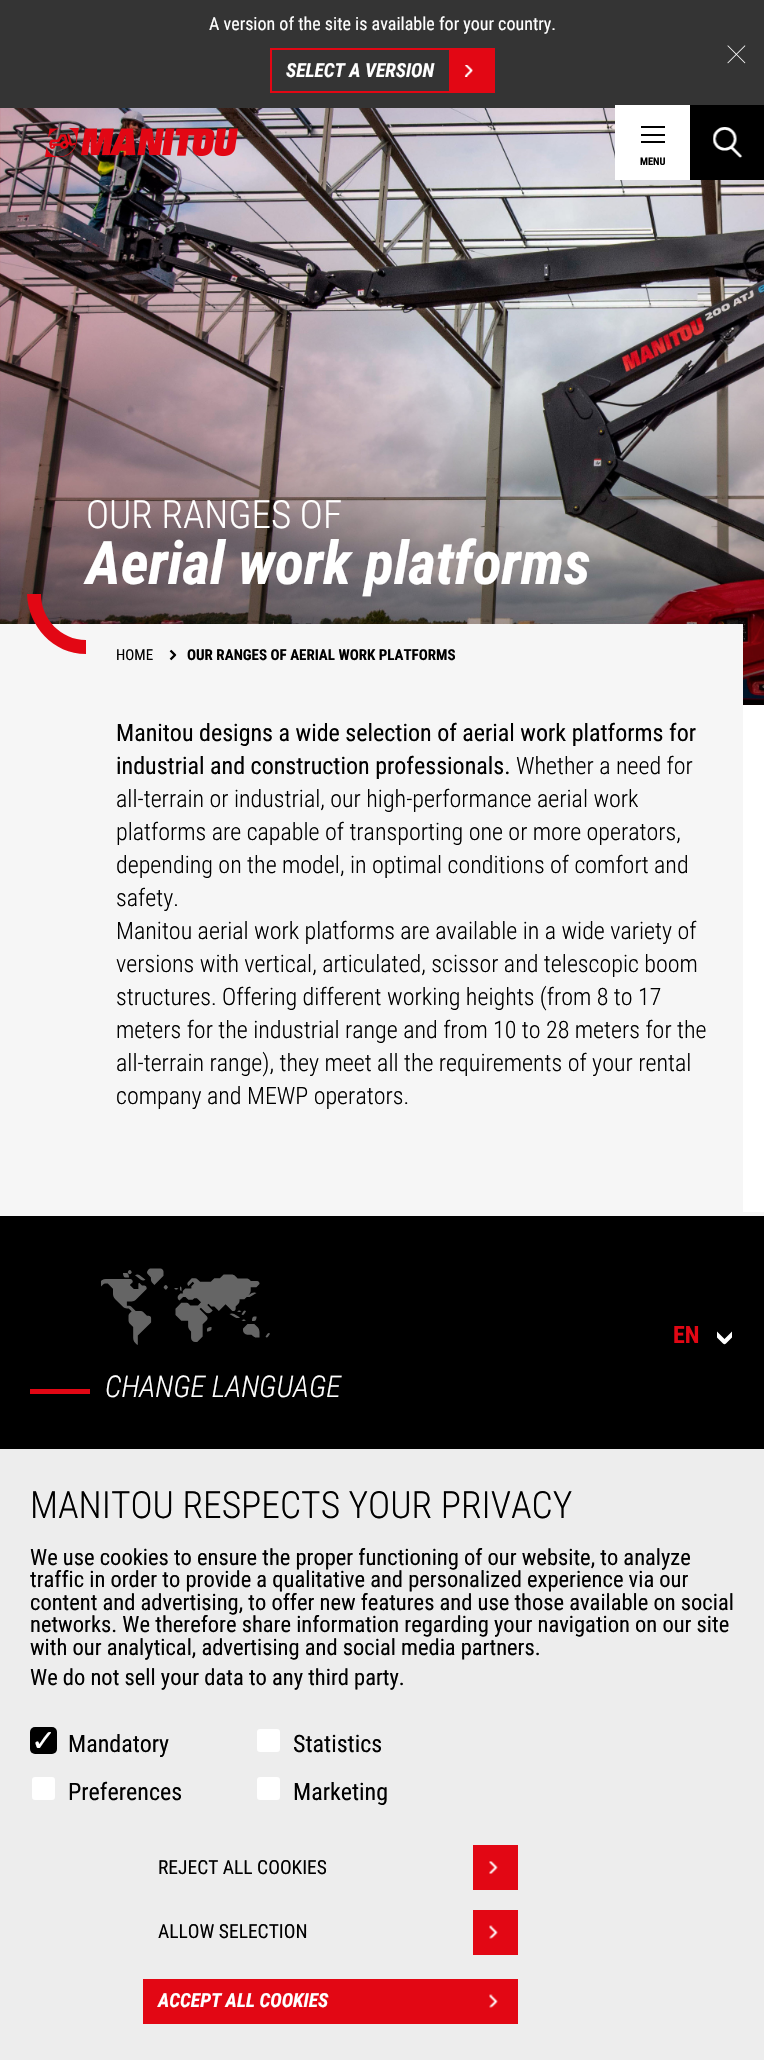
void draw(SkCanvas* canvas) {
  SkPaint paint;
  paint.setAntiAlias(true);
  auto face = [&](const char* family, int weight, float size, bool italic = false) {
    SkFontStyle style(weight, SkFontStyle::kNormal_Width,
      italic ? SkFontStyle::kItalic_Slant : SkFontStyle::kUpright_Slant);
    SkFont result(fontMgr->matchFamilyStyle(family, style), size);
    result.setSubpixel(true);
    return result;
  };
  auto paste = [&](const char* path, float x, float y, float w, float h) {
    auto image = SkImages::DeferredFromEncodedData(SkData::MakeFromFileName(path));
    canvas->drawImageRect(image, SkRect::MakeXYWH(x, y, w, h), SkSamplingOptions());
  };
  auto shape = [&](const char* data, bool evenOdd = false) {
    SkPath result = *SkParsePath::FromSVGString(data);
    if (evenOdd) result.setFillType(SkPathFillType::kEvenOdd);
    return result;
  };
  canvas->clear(0xffffffff);
  paint.setColor(0xff343434);
  canvas->drawRect(SkRect::MakeXYWH(0, 0, 764, 108), paint);
  paste("img/1.png", 727, 45, 19, 19);
  paint.setStroke(true);
  paint.setStrokeWidth(2);
  paint.setColor(0xffe20714);
  canvas->drawRect(SkRect::MakeXYWH(271, 49, 223, 43), paint);
  paint.setStroke(false);
  canvas->drawRect(SkRect::MakeXYWH(449, 50, 44, 41), paint);
  paste("img/2.png", 464, 65, 9, 12);
  paste("img/5.png", 0, 108, 764, 597);
  paste("img/3.png", 45, 128, 193, 30);
  {
    const struct { float x, y, w, h; SkColor color; } items[] = {
      {615, 105, 75, 75, 0xffffffff},
      {641, 134, 24, 2, 0xff000000},
      {641, 126, 24, 2, 0xff000000},
      {641, 141, 24, 2, 0xff000000},
      {690, 105, 74, 75, 0xff000000},
    };
    for (auto [x, y, w, h, color] : items) {
      paint.setColor(color);
      canvas->drawRect(SkRect::MakeXYWH(x, y, w, h), paint);
    }
  }
  paste("img/4.png", 713, 127, 30, 31);
  paint.setColor(0xfff6f6f6);
  canvas->drawRect(SkRect::MakeXYWH(0, 624, 743, 588), paint);
  paint.setStroke(true);
  paint.setStrokeWidth(2.4f);
  paint.setStrokeJoin(SkPaint::kRound_Join);
  paint.setColor(0xff000000);
  canvas->drawPath(shape("M170.5 650.5L175 655L170.5 659.5"), paint);
  paint.setStroke(false);
  canvas->drawRect(SkRect::MakeXYWH(0, 1216, 764, 233), paint);
  paint.setColor(0xfff6f6f6);
  canvas->drawRect(SkRect::MakeXYWH(0, 1212, 764, 4), paint);
  canvas->save();
  canvas->clipPath(shape("M732 1325V1346H717V1325Z"), true);
  paint.setStroke(true);
  paint.setStrokeWidth(4.2f);
  paint.setColor(0xffffffff);
  canvas->drawPath(shape("M737 1329.5L724.5 1342L712 1329.5"), paint);
  canvas->restore();
  paste("img/6.png", 101, 1268, 169, 77);
  paint.setStroke(false);
  paint.setColor(0xffe20714);
  canvas->drawRect(SkRect::MakeXYWH(30, 1389, 60, 5), paint);
  paint.setColor(0xffededed);
  canvas->drawRect(SkRect::MakeXYWH(0, 1449, 764, 611), paint);
  paint.setColor(0xff000000);
  canvas->drawRoundRect(SkRect::MakeXYWH(30, 1727, 27, 27), 5, 5, paint);
  paint.setColor(0xffffffff);
  canvas->drawRoundRect(SkRect::MakeXYWH(256, 1728, 25, 25), 4, 4, paint);
  paint.setStroke(true);
  paint.setStrokeWidth(2);
  paint.setStrokeJoin(SkPaint::kMiter_Join);
  paint.setColor(0xffededed);
  canvas->drawRoundRect(SkRect::MakeXYWH(256, 1728, 25, 25), 4, 4, paint);
  paint.setStroke(false);
  paint.setColor(0xffffffff);
  canvas->drawRoundRect(SkRect::MakeXYWH(31, 1776, 25, 25), 4, 4, paint);
  paint.setStroke(true);
  paint.setColor(0xffededed);
  canvas->drawRoundRect(SkRect::MakeXYWH(31, 1776, 25, 25), 4, 4, paint);
  paint.setStroke(false);
  paint.setColor(0xffffffff);
  canvas->drawRoundRect(SkRect::MakeXYWH(256, 1776, 25, 25), 4, 4, paint);
  paint.setStroke(true);
  paint.setColor(0xffededed);
  canvas->drawRoundRect(SkRect::MakeXYWH(256, 1776, 25, 25), 4, 4, paint);
  paint.setStroke(false);
  paint.setColor(0xffe20714);
  canvas->drawRect(SkRect::MakeXYWH(473, 1845, 45, 45), paint);
  paste("img/7.png", 489, 1861, 9, 13);
  canvas->drawRect(SkRect::MakeXYWH(473, 1910, 45, 45), paint);
  paste("img/8.png", 489, 1925, 9, 14);
  canvas->drawRect(SkRect::MakeXYWH(143, 1979, 375, 45), paint);
  paste("img/8.png", 489, 1994, 9, 14);
  auto f0 = face("Roboto Condensed", 400, 18);
  paint.setColor(0xffffffff);
  canvas->drawString("A version of the site is available for your country.", 209, 30, f0, paint);
  auto f1 = face("Roboto Condensed", 700, 19.5f, true);
  canvas->drawString("SELECT A VERSION", 286, 77, f1, paint);
  auto f2 = face("Roboto Condensed", 700, 10.5f);
  paint.setColor(0xff000000);
  canvas->drawString("MENU", 640, 165, f2, paint);
  auto f3 = face("Roboto Condensed", 300, 39);
  paint.setColor(0xffffffff);
  canvas->drawString("OUR RANGES OF", 86, 528, f3, paint);
  auto f4 = face("Roboto Condensed", 700, 60, true);
  canvas->drawString("Aerial work platforms", 86, 584, f4, paint);
  paint.setColor(0xffe20714);
  canvas->drawPath(shape("M27 594H41C41 619 61 640 86 640V654C53 654 28 626 27 594Z"), paint);
  auto f5 = face("Roboto Condensed", 400, 15);
  paint.setColor(0xff000000);
  canvas->drawString("HOME", 116, 660, f5, paint);
  auto f6 = face("Roboto Condensed", 700, 15);
  canvas->drawString("OUR RANGES OF AERIAL WORK PLATFORMS", 187, 660, f6, paint);
  auto f7 = face("Roboto Condensed", 400, 24);
  canvas->drawString("Manitou designs a wide selection of aerial work platforms for", 116, 741, f7, paint);
  canvas->drawString("industrial and construction professionals.", 116, 774, f7, paint);
  auto f8 = face("Roboto Condensed", 300, 24);
  {
    const struct { const char* s; float x, y; } items[] = {
      {"Whether a need for", 516, 774},
      {"all-terrain or industrial, our high-performance aerial work", 116, 807},
      {"platforms are capable of transporting one or more operators,", 116, 840},
      {"depending on the model, in optimal conditions of comfort and", 116, 873},
      {"safety.", 116, 906},
      {"Manitou aerial work platforms are available in a wide variety of", 116, 939},
      {"versions with vertical, articulated, scissor and telescopic boom", 116, 972},
      {"structures. Offering different working heights (from 8 to 17", 116, 1005},
      {"meters for the industrial range and from 10 to 28 meters for the", 116, 1038},
      {"all-terrain range), they meet all the requirements of your rental", 116, 1071},
      {"company and MEWP operators.", 116, 1104},
    };
    for (auto [s, x, y] : items) {
      canvas->drawString(s, x, y, f8, paint);
    }
  }
  auto f9 = face("Roboto Condensed", 700, 24);
  paint.setColor(0xffe20714);
  canvas->drawString("EN", 673, 1343, f9, paint);
  auto f10 = face("Roboto Condensed", 300, 30, true);
  paint.setColor(0xffffffff);
  canvas->drawString("CHANGE LANGUAGE", 105, 1397, f10, paint);
  auto f11 = face("Roboto Condensed", 300, 37.5f);
  paint.setColor(0xff000000);
  canvas->drawString("MANITOU RESPECTS YOUR PRIVACY", 30, 1518, f11, paint);
  auto f12 = face("Roboto Condensed", 400, 22.5f);
  {
    const struct { const char* s; float x, y; } items[] = {
      {"We use cookies to ensure the proper functioning of our website, to analyze", 30, 1565},
      {"traffic in order to provide a qualitative and personalized experience via our", 30, 1587},
      {"content and advertising, to offer new features and use those available on social", 30, 1610},
      {"networks. We therefore share information regarding your navigation on our site", 30, 1632},
      {"with our analytical, advertising and social media partners.", 30, 1655},
      {"We do not sell your data to any third party.", 30, 1685},
    };
    for (auto [s, x, y] : items) {
      canvas->drawString(s, x, y, f12, paint);
    }
  }
  auto f13 = face("DejaVu Sans", 400, 30);
  paint.setColor(0xffffffff);
  canvas->drawString("✓", 31, 1751, f13, paint);
  paint.setColor(0xff000000);
  {
    const struct { const char* s; float x, y; } items[] = {
      {"Mandatory", 68, 1752},
      {"Statistics", 293, 1752},
      {"Preferences", 68, 1800},
      {"Marketing", 293, 1800},
    };
    for (auto [s, x, y] : items) {
      canvas->drawString(s, x, y, f7, paint);
    }
  }
  auto f14 = face("Roboto Condensed", 400, 19.5f);
  canvas->drawString("REJECT ALL COOKIES", 158, 1874, f14, paint);
  canvas->drawString("ALLOW SELECTION", 158, 1938, f14, paint);
  paint.setColor(0xffffffff);
  canvas->drawString("ACCEPT ALL COOKIES", 158, 2007, f1, paint);
}
